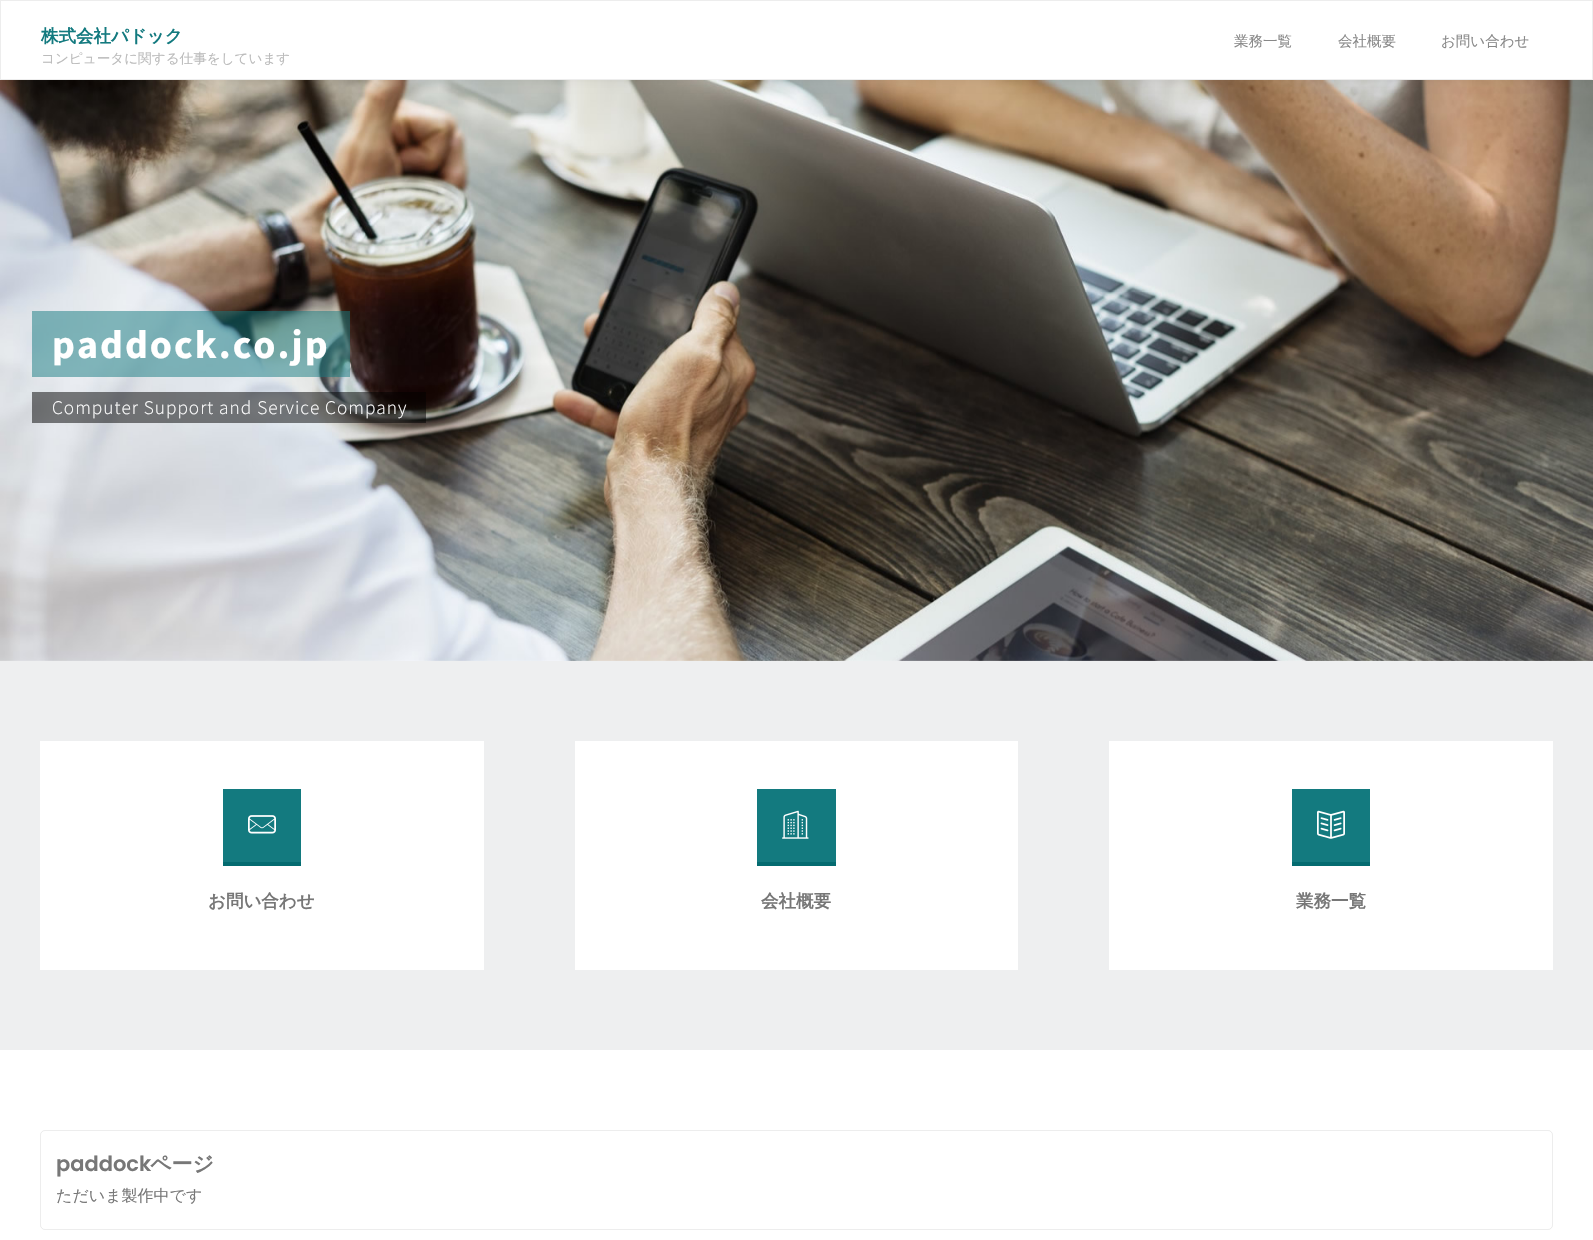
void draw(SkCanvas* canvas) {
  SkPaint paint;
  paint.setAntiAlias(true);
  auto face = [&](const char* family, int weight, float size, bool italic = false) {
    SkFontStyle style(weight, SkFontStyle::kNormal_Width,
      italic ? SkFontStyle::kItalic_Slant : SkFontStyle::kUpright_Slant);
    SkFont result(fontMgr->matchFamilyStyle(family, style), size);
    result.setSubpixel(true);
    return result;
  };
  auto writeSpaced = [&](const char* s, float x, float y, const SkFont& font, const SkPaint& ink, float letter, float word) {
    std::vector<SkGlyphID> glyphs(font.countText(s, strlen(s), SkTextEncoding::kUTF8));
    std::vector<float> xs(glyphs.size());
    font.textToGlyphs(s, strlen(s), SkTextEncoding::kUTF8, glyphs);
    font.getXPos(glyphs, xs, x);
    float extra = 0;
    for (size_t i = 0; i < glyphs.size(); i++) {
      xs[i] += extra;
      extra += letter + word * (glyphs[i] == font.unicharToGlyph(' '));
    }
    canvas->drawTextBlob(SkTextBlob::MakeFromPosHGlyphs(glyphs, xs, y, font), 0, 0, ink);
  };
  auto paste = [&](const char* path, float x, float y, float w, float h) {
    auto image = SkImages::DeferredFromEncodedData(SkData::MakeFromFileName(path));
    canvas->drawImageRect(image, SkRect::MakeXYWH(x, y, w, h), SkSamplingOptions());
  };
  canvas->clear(0xffffffff);
  paste("img/1.png", 0, 80, 1593, 581);
  paint.setColor(0x0d000000);
  paint.setMaskFilter(SkMaskFilter::MakeBlur(kNormal_SkBlurStyle, 4));
  canvas->drawRect(SkRect::MakeXYWH(-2, -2, 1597, 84), paint);
  paint.setMaskFilter(nullptr);
  paint.setColor(0xffffffff);
  canvas->drawRect(SkRect::MakeXYWH(0.5f, 0.5f, 1592, 79), paint);
  paint.setStroke(true);
  paint.setStrokeWidth(1);
  paint.setColor(0xffededed);
  canvas->drawRect(SkRect::MakeXYWH(0.5f, 0.5f, 1592, 79), paint);
  paint.setStroke(false);
  {
    const struct { float x, y, w, h; SkColor color; } items[] = {
      {32, 311, 318, 66, 0x80137a7f},
      {32, 392, 394, 31, 0x80000000},
      {0, 661, 1593, 389, 0xffeeeff0},
      {40, 741, 444, 229, 0xffffffff},
      {223, 789, 78, 73, 0xff137a7f},
      {223, 862, 78, 4, 0xff046b70},
    };
    for (auto [x, y, w, h, color] : items) {
      paint.setColor(color);
      canvas->drawRect(SkRect::MakeXYWH(x, y, w, h), paint);
    }
  }
  paste("img/2.png", 248, 815, 28, 19);
  {
    const struct { float x, y, w, h; SkColor color; } items[] = {
      {575, 741, 443, 229, 0xffffffff},
      {757, 789, 79, 73, 0xff137a7f},
      {757, 862, 79, 4, 0xff046b70},
    };
    for (auto [x, y, w, h, color] : items) {
      paint.setColor(color);
      canvas->drawRect(SkRect::MakeXYWH(x, y, w, h), paint);
    }
  }
  paste("img/3.png", 782, 810, 27, 29);
  {
    const struct { float x, y, w, h; SkColor color; } items[] = {
      {1109, 741, 444, 229, 0xffffffff},
      {1292, 789, 78, 73, 0xff137a7f},
      {1292, 862, 78, 4, 0xff046b70},
    };
    for (auto [x, y, w, h, color] : items) {
      paint.setColor(color);
      canvas->drawRect(SkRect::MakeXYWH(x, y, w, h), paint);
    }
  }
  paste("img/4.png", 1317, 810, 28, 29);
  paint.setStroke(true);
  paint.setColor(0x12000000);
  canvas->drawRoundRect(SkRect::MakeXYWH(40.5f, 1130.5f, 1512, 99), 4.5f, 4.5f, paint);
  auto f0 = face("WenQuanYi Zen Hei", 700, 17.5f);
  paint.setStroke(false);
  paint.setColor(0xff137a7f);
  canvas->drawString("株式会社パドック", 41, 42, f0, paint);
  auto f1 = face("WenQuanYi Zen Hei", 500, 13.6f);
  paint.setColor(0xffbbbbbb);
  canvas->drawString("コンピュータに関する仕事をしています", 41, 63, f1, paint);
  auto f2 = face("WenQuanYi Zen Hei", 500, 14.5f);
  paint.setColor(0xff888888);
  {
    const struct { const char* s; float x, y; } items[] = {
      {"業務一覧", 1234, 46},
      {"会社概要", 1338, 46},
      {"お問い合わせ", 1441, 46},
    };
    for (auto [s, x, y] : items) {
      canvas->drawString(s, x, y, f2, paint);
    }
  }
  auto f3 = face("Source Sans Pro", 700, 40);
  paint.setColor(0xffffffff);
  writeSpaced("paddock.co.jp", 52, 358, f3, paint, 2, 0);
  auto f4 = face("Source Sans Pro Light", 300, 19.25f);
  writeSpaced("Computer Support and Service Company", 52, 414, f4, paint, 1, 0);
  paint.setColor(0xff777777);
  {
    const struct { const char* s; float x, y; } items[] = {
      {"お問い合わせ", 208, 907},
      {"会社概要", 761, 907},
      {"業務一覧", 1296, 907},
    };
    for (auto [s, x, y] : items) {
      canvas->drawString(s, x, y, f0, paint);
    }
  }
  auto f5 = face("Poppins", 600, 21);
  canvas->drawString("paddock", 56, 1171, f5, paint);
  auto f6 = face("WenQuanYi Zen Hei", 700, 21);
  canvas->drawString("ページ", 150, 1171, f6, paint);
  auto f7 = face("WenQuanYi Zen Hei", 500, 16);
  canvas->drawString("ただいま製作中です", 56, 1201, f7, paint);
}
